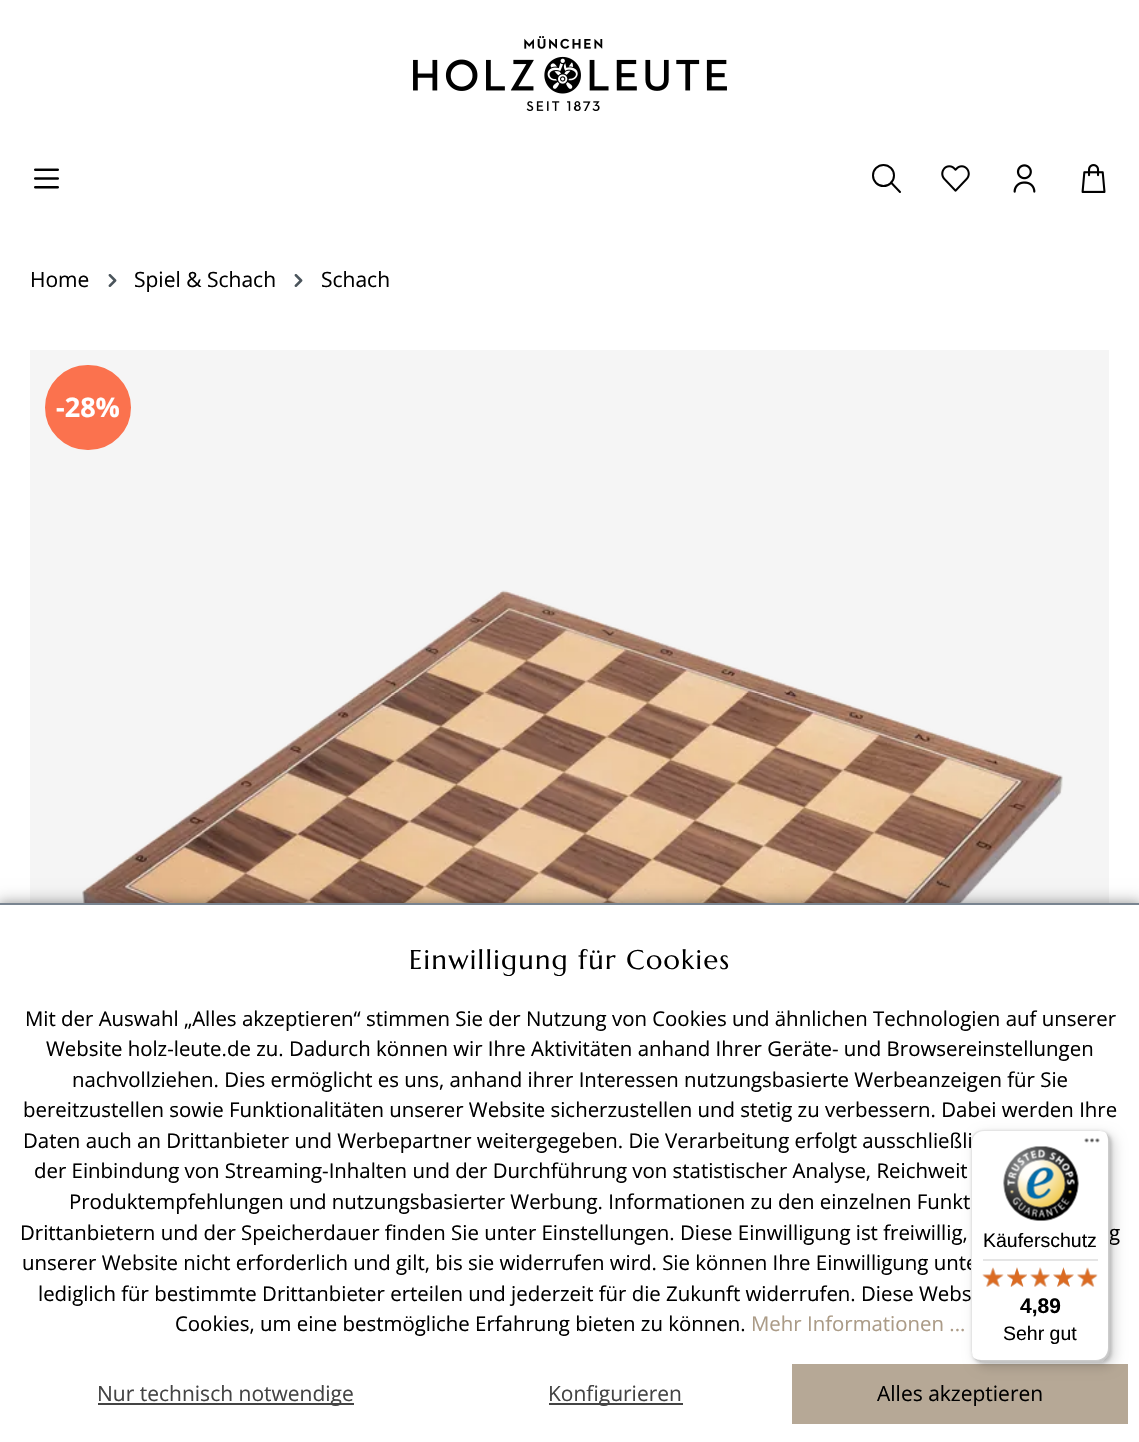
void draw(SkCanvas* canvas) {
  SkPaint paint;
  paint.setAntiAlias(true);
  auto face = [&](const char* family, int weight, float size, bool italic = false) {
    SkFontStyle style(weight, SkFontStyle::kNormal_Width,
      italic ? SkFontStyle::kItalic_Slant : SkFontStyle::kUpright_Slant);
    SkFont result(fontMgr->matchFamilyStyle(family, style), size);
    result.setSubpixel(true);
    return result;
  };
  auto writeSpaced = [&](const char* s, float x, float y, const SkFont& font, const SkPaint& ink, float letter, float word) {
    std::vector<SkGlyphID> glyphs(font.countText(s, strlen(s), SkTextEncoding::kUTF8));
    std::vector<float> xs(glyphs.size());
    font.textToGlyphs(s, strlen(s), SkTextEncoding::kUTF8, glyphs);
    font.getXPos(glyphs, xs, x);
    float extra = 0;
    for (size_t i = 0; i < glyphs.size(); i++) {
      xs[i] += extra;
      extra += letter + word * (glyphs[i] == font.unicharToGlyph(' '));
    }
    canvas->drawTextBlob(SkTextBlob::MakeFromPosHGlyphs(glyphs, xs, y, font), 0, 0, ink);
  };
  auto paste = [&](const char* path, float x, float y, float w, float h) {
    auto image = SkImages::DeferredFromEncodedData(SkData::MakeFromFileName(path));
    canvas->drawImageRect(image, SkRect::MakeXYWH(x, y, w, h), SkSamplingOptions());
  };
  auto shape = [&](const char* data, bool evenOdd = false) {
    SkPath result = *SkParsePath::FromSVGString(data);
    if (evenOdd) result.setFillType(SkPathFillType::kEvenOdd);
    return result;
  };
  canvas->clear(0xffffffff);
  paste("img/1.png", 413, 36, 314, 75);
  paste("img/2.png", 34, 168, 25, 21);
  paint.setStroke(true);
  paint.setStrokeWidth(2);
  paint.setColor(0xff000000);
  canvas->drawCircle(883.5f, 175.5f, 10.5f, paint);
  paint.setStrokeCap(SkPaint::kRound_Cap);
  canvas->drawPath(shape("M891 182.5L900 192"), paint);
  paste("img/3.png", 941, 165, 29, 27);
  paste("img/4.png", 1013, 164, 23, 29);
  paste("img/5.png", 1081, 164, 25, 29);
  paste("img/6.png", 108, 274, 9, 13);
  paste("img/6.png", 294, 274, 9, 13);
  paint.setStroke(false);
  paint.setColor(0xfff5f5f5);
  canvas->drawRect(SkRect::MakeXYWH(30, 350, 1079, 553), paint);
  paste("img/7.png", 82, 590, 981, 313);
  paint.setColor(0xfffb724e);
  canvas->drawRoundRect(SkRect::MakeXYWH(46, 366, 84, 83), 41.5f, 41.5f, paint);
  paint.setStroke(true);
  paint.setStrokeCap(SkPaint::kButt_Cap);
  canvas->drawRoundRect(SkRect::MakeXYWH(46, 366, 84, 83), 41.5f, 41.5f, paint);
  paint.setStroke(false);
  paint.setColor(0x33000000);
  paint.setMaskFilter(SkMaskFilter::MakeBlur(kNormal_SkBlurStyle, 4.5f));
  canvas->drawRect(SkRect::MakeXYWH(0, 903, 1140, 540), paint);
  paint.setMaskFilter(nullptr);
  paint.setMaskFilter(SkMaskFilter::MakeBlur(kNormal_SkBlurStyle, 7.5f));
  canvas->drawRect(SkRect::MakeXYWH(-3, 900, 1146, 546), paint);
  paint.setMaskFilter(nullptr);
  {
    const struct { float x, y, w, h; SkColor color; } items[] = {
      {0, 905, 1139, 537, 0xffffffff},
      {0, 903, 1139, 2, 0xff798490},
      {98, 1403, 256, 2, 0xff444444},
      {549, 1403, 134, 2, 0xff444444},
      {792, 1364, 336, 60, 0xffb6a896},
    };
    for (auto [x, y, w, h, color] : items) {
      paint.setColor(color);
      canvas->drawRect(SkRect::MakeXYWH(x, y, w, h), paint);
    }
  }
  paint.setColor(0x26000000);
  paint.setMaskFilter(SkMaskFilter::MakeBlur(kNormal_SkBlurStyle, 6));
  canvas->drawRoundRect(SkRect::MakeXYWH(975, 1134, 140, 233), 12, 12, paint);
  paint.setMaskFilter(nullptr);
  paint.setMaskFilter(SkMaskFilter::MakeBlur(kNormal_SkBlurStyle, 1.5f));
  canvas->drawRoundRect(SkRect::MakeXYWH(972, 1131, 140, 233), 12, 12, paint);
  paint.setMaskFilter(nullptr);
  auto f0 = face("Open Sans", 400, 21);
  paint.setColor(0xff000000);
  {
    const struct { const char* s; float x, y; } items[] = {
      {"Home", 30, 287},
      {"Spiel & Schach", 134, 287},
      {"Schach", 321, 287},
    };
    for (auto [s, x, y] : items) {
      canvas->drawString(s, x, y, f0, paint);
    }
  }
  auto f1 = face("Open Sans", 700, 27);
  paint.setColor(0xffffffff);
  canvas->drawString("-28%", 56, 417, f1, paint);
  auto f2 = face("Marcellus", 400, 27);
  paint.setColor(0xff000000);
  writeSpaced("Einwilligung für Cookies", 409, 969, f2, paint, 1.35f, 0);
  auto f3 = face("Open Sans", 400, 20.4f);
  {
    const struct { const char* s; float x, y; } items[] = {
      {"Mit der Auswahl „Alles akzeptieren“ stimmen Sie der Nutzung von Cookies und ähnlichen Technologien auf unserer", 25, 1026},
      {"Website holz-leute.de zu. Dadurch können wir Ihre Aktivitäten anhand Ihrer Geräte- und Browsereinstellungen", 46, 1056},
      {"nachvollziehen. Dies ermöglicht es uns, anhand ihrer Interessen nutzungsbasierte Werbeanzeigen für Sie", 72, 1087},
      {"bereitzustellen sowie Funktionalitäten unserer Website sicherzustellen und stetig zu verbessern. Dabei werden Ihre", 23, 1117},
      {"Daten auch an Drittanbieter und Werbepartner weitergegeben. Die Verarbeitung erfolgt ausschließli", 23, 1148},
      {"der Einbindung von Streaming-Inhalten und der Durchführung von statistischer Analyse, Reichweit", 34, 1178},
      {"Produktempfehlungen und nutzungsbasierter Werbung. Informationen zu den einzelnen Funkt", 69, 1209},
      {"Drittanbietern und der Speicherdauer finden Sie unter Einstellungen. Diese Einwilligung ist freiwillig,", 20, 1240},
      {"g", 1109, 1240},
      {"unserer Website nicht erforderlich und gilt, bis sie widerrufen wird. Sie können Ihre Einwilligung unte", 22, 1270},
      {"lediglich für bestimmte Drittanbieter erteilen und jederzeit für die Zukunft widerrufen. Diese Webs", 38, 1301},
      {"Cookies, um eine bestmögliche Erfahrung bieten zu können.", 175, 1331},
    };
    for (auto [s, x, y] : items) {
      canvas->drawString(s, x, y, f3, paint);
    }
  }
  paint.setColor(0xffab9b87);
  canvas->drawString("Mehr Informationen ...", 751, 1331, f3, paint);
  paint.setColor(0xff444444);
  canvas->drawString("Nur technisch notwendige", 97, 1401, f0, paint);
  canvas->drawString("Konfigurieren", 548, 1401, f0, paint);
  paint.setColor(0xff000000);
  canvas->drawString("Alles akzeptieren", 877, 1401, f0, paint);
  paint.setColor(0xffffffff);
  canvas->drawRoundRect(SkRect::MakeXYWH(971, 1130, 139, 232), 12, 12, paint);
  paint.setColor(0xffe5e5e5);
  canvas->drawPath(shape("M984 1131H1100L1105 1132C1103 1131 1100 1130 1098 1130H983C976 1130 971 1135 971 1142V1350C971 1352 972 1355 973 1357L972 1352V1143C972 1136 977 1131 984 1131Z"), paint);
  paint.setColor(0x33000000);
  canvas->drawPath(shape("M974 1358C976 1360 979 1362 983 1362H1098C1105 1362 1110 1357 1110 1350V1142C1110 1138 1108 1135 1106 1133C1107 1135 1108 1137 1108 1140V1348C1108 1355 1103 1360 1096 1360H981C978 1360 976 1359 974 1358Z"), paint);
  paint.setColor(0x33323232);
  canvas->drawPath(shape("M975 1359C977 1361 980 1362 983 1362H1098C1105 1362 1110 1357 1110 1350V1142C1110 1139 1109 1136 1107 1134C1108 1136 1109 1138 1109 1141V1349C1109 1356 1104 1361 1097 1361H982C979 1361 977 1360 975 1359Z"), paint);
  paint.setColor(0x4dffffff);
  canvas->drawPath(shape("M975 1359C977 1361 980 1362 983 1362H1098C1105 1362 1110 1357 1110 1350V1142C1110 1139 1109 1136 1107 1134C1108 1136 1109 1138 1109 1141V1349C1109 1356 1104 1361 1097 1361H982C979 1361 977 1360 975 1359Z"), paint);
  paste("img/8.png", 1084, 1138, 16, 5);
  paste("img/9.png", 1003, 1146, 76, 75);
  auto f4 = face("Liberation Sans", 400, 19.5f);
  paint.setColor(0xff000000);
  canvas->drawString("Käuferschutz", 983, 1247, f4, paint);
  paint.setColor(0xffe5e5e5);
  canvas->drawRect(SkRect::MakeXYWH(983, 1259, 115, 2), paint);
  paste("img/15.png", 983, 1268, 20, 19);
  paste("img/10.png", 982, 1267, 22, 20);
  paste("img/16.png", 1007, 1267, 20, 20);
  paste("img/11.png", 1007, 1267, 20, 20);
  paste("img/17.png", 1030, 1267, 20, 20);
  paste("img/12.png", 1030, 1267, 20, 20);
  paste("img/18.png", 1053, 1267, 21, 20);
  paste("img/13.png", 1053, 1267, 21, 20);
  paste("img/19.png", 1077, 1268, 21, 19);
  paste("img/14.png", 1077, 1267, 20, 20);
  auto f5 = face("Liberation Sans", 700, 21);
  paint.setColor(0xff000000);
  canvas->drawString("4,89", 1020, 1313, f5, paint);
  canvas->drawString("Sehr gut", 1003, 1340, f4, paint);
}
